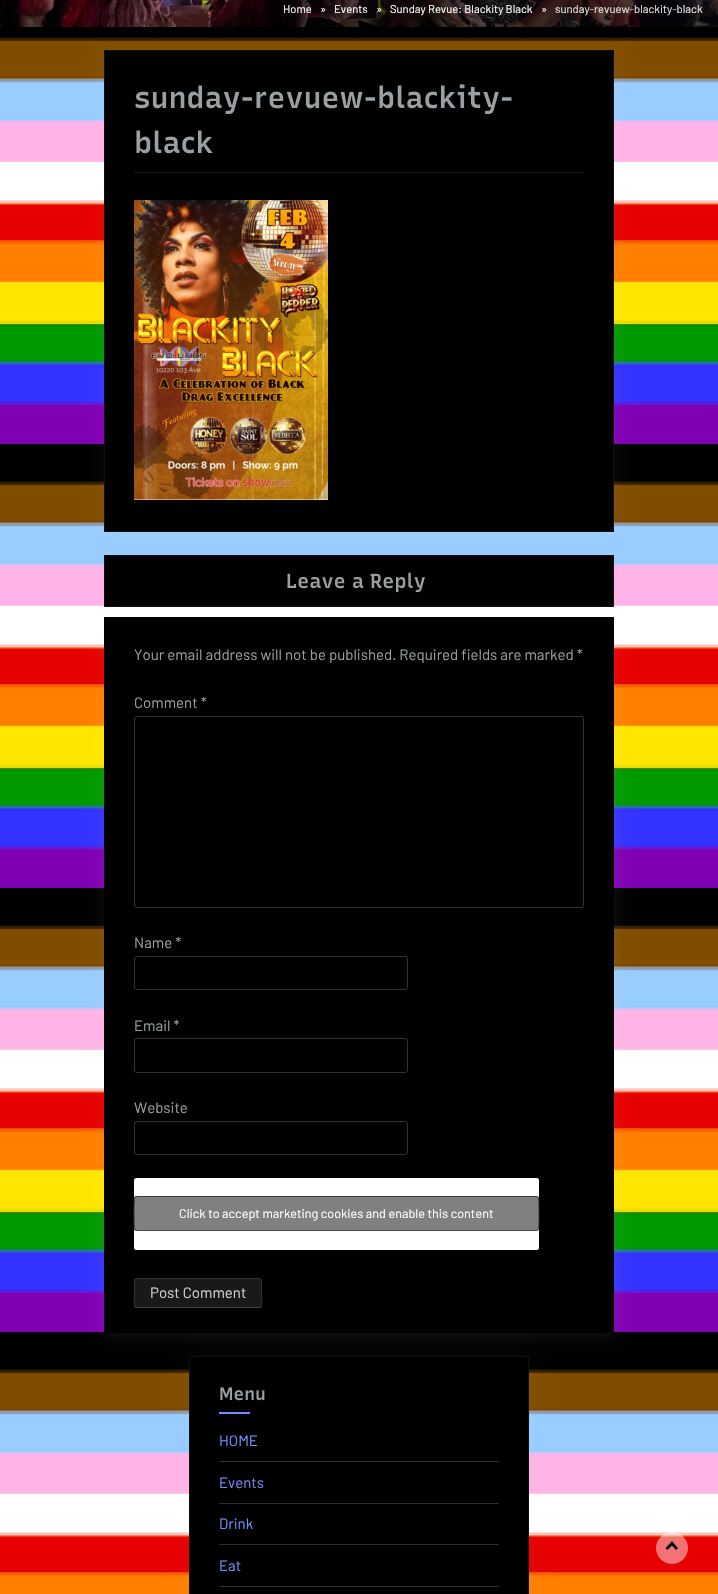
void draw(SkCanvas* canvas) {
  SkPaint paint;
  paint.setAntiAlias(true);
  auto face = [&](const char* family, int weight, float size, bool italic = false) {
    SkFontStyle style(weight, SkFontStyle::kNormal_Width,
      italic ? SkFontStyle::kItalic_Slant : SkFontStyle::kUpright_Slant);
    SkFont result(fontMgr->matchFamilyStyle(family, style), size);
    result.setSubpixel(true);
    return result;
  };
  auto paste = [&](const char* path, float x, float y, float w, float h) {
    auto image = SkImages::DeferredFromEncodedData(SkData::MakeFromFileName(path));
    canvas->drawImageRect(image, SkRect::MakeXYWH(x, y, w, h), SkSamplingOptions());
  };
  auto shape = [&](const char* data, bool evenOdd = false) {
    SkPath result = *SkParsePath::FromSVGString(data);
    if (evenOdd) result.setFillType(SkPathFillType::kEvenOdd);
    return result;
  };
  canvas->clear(0xffffffff);
  paste("img/1.png", 0, 27, 718, 1567);
  paste("img/2.png", 0, 0, 718, 27);
  paint.setColor(0xa6000000);
  canvas->drawRect(SkRect::MakeXYWH(268, 0, 450, 27), paint);
  paint.setColor(0x0fffffff);
  paint.setMaskFilter(SkMaskFilter::MakeBlur(kNormal_SkBlurStyle, 8));
  canvas->drawRect(SkRect::MakeXYWH(105, 52, 510, 482), paint);
  paint.setMaskFilter(nullptr);
  paint.setColor(0xff000000);
  canvas->drawRect(SkRect::MakeXYWH(104.5f, 50.5f, 509, 481), paint);
  paint.setStroke(true);
  paint.setStrokeWidth(1);
  paint.setColor(0xff101010);
  canvas->drawRect(SkRect::MakeXYWH(104.5f, 50.5f, 509, 481), paint);
  paste("img/3.png", 135, 84, 377, 30);
  paste("img/4.png", 136, 130, 77, 24);
  paint.setStroke(false);
  paint.setColor(0xff1a1a1a);
  canvas->drawRect(SkRect::MakeXYWH(134, 172, 450, 1), paint);
  paste("img/5.png", 134, 200, 194, 300);
  paint.setColor(0xff000000);
  canvas->drawRect(SkRect::MakeXYWH(104.5f, 555.5f, 509, 51), paint);
  paint.setStroke(true);
  paint.setColor(0xff101010);
  canvas->drawRect(SkRect::MakeXYWH(104.5f, 555.5f, 509, 51), paint);
  paste("img/6.png", 287, 572, 138, 21);
  paint.setStroke(false);
  paint.setColor(0x14ffffff);
  paint.setMaskFilter(SkMaskFilter::MakeBlur(kNormal_SkBlurStyle, 8));
  canvas->drawRect(SkRect::MakeXYWH(105, 619, 510, 716), paint);
  paint.setMaskFilter(nullptr);
  paint.setColor(0xff000000);
  canvas->drawRect(SkRect::MakeXYWH(104, 617, 510, 716), paint);
  paint.setStroke(true);
  paint.setColor(0xff333333);
  canvas->drawRoundRect(SkRect::MakeXYWH(134.5f, 716.5f, 449, 191), 2.5f, 2.5f, paint);
  canvas->drawRoundRect(SkRect::MakeXYWH(134.5f, 956.5f, 273, 33), 2.5f, 2.5f, paint);
  canvas->drawRoundRect(SkRect::MakeXYWH(134.5f, 1038.5f, 273, 34), 2.5f, 2.5f, paint);
  canvas->drawRoundRect(SkRect::MakeXYWH(134.5f, 1121.5f, 273, 33), 2.5f, 2.5f, paint);
  paint.setStroke(false);
  paint.setColor(0xffffffff);
  canvas->drawRoundRect(SkRect::MakeXYWH(134, 1178, 405, 72), 2.5f, 2.5f, paint);
  paint.setColor(0xff808080);
  canvas->drawRoundRect(SkRect::MakeXYWH(134, 1196, 405, 35), 2.5f, 2.5f, paint);
  paint.setStroke(true);
  paint.setStrokeWidth(0.9f);
  paint.setColor(0xff444444);
  canvas->drawPath(shape("M538 1230L536.5 1230.5H136.5L135 1230"), paint);
  paint.setColor(0xff333333);
  canvas->drawPath(shape("M135 1230C133.5 1228.5 134 1202 134.5 1198.5L135 1197L136.5 1196.5H536.5L538 1197L538.5 1198.5C539 1202 539.5 1228.5 538 1230"), paint);
  paint.setStroke(false);
  paint.setColor(0xff191919);
  canvas->drawRoundRect(SkRect::MakeXYWH(134, 1278, 128, 30), 3, 3, paint);
  paint.setStroke(true);
  paint.setStrokeWidth(1);
  paint.setColor(0xff444444);
  canvas->drawPath(shape("M261 1307L259 1307.5H137L135 1307"), paint);
  paint.setColor(0xff333333);
  canvas->drawPath(shape("M135 1307C133.5 1305 134.5 1295.5 134.5 1293V1285C134.5 1283 133.5 1278.5 137 1278.5H259C262.5 1278.5 261.5 1283 261.5 1285V1293C261.5 1295.5 262.5 1305 261 1307"), paint);
  paint.setStroke(false);
  paint.setColor(0x0affffff);
  paint.setMaskFilter(SkMaskFilter::MakeBlur(kNormal_SkBlurStyle, 8));
  canvas->drawRect(SkRect::MakeXYWH(190, 1358, 340, 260), paint);
  paint.setMaskFilter(nullptr);
  paint.setColor(0xff000000);
  canvas->drawRect(SkRect::MakeXYWH(189.5f, 1356.5f, 339, 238), paint);
  paint.setStroke(true);
  paint.setColor(0xff101010);
  canvas->drawRect(SkRect::MakeXYWH(189.5f, 1356.5f, 339, 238), paint);
  paste("img/7.png", 220, 1387, 45, 14);
  paint.setStroke(false);
  {
    const struct { float x, y, w, h; SkColor color; } items[] = {
      {219, 1412, 31, 2, 0xff768dff},
      {219, 1461, 280, 1, 0xff2e2e2e},
      {219, 1503, 280, 1, 0xff2e2e2e},
      {219, 1544, 280, 1, 0xff2e2e2e},
      {219, 1586, 280, 1, 0xff2e2e2e},
    };
    for (auto [x, y, w, h, color] : items) {
      paint.setColor(color);
      canvas->drawRect(SkRect::MakeXYWH(x, y, w, h), paint);
    }
  }
  paint.setColor(0x73ffffff);
  canvas->drawCircle(672, 1548, 16, paint);
  paint.setColor(0xff000000);
  canvas->drawPath(shape("M667.5 1550L665.5 1548L672 1541.5L674 1543.5Z"), paint);
  canvas->drawPath(shape("M676 1550L670 1543.5L672 1541.5L678 1548Z"), paint);
  auto f0 = face("Barlow", 400, 11.25f);
  paint.setColor(0xffffffff);
  {
    const struct { const char* s; float x, y; } items[] = {
      {"Home", 283, 13},
      {"»", 320, 13},
      {"Events", 334, 13},
      {"»", 376, 13},
      {"Sunday Revue: Blackity Black", 390, 13},
      {"»", 541, 13},
    };
    for (auto [s, x, y] : items) {
      canvas->drawString(s, x, y, f0, paint);
    }
  }
  paint.setColor(0xffe7e5e5);
  canvas->drawString("sunday-revuew-blackity-black", 555, 13, f0, paint);
  auto f1 = face("Barlow", 400, 15);
  paint.setColor(0xff999fa3);
  {
    const struct { const char* s; float x, y; } items[] = {
      {"Your email address will not be published. Required fields are marked *", 134, 660},
      {"Comment *", 134, 708},
      {"Name *", 134, 948},
      {"Email *", 134, 1031},
      {"Website", 134, 1113},
    };
    for (auto [s, x, y] : items) {
      canvas->drawString(s, x, y, f1, paint);
    }
  }
  auto f2 = face("Barlow", 400, 12.6f);
  paint.setColor(0xffffffff);
  canvas->drawString("Click to accept marketing cookies and enable this content", 179, 1218, f2, paint);
  paint.setColor(0xffd1d1d1);
  canvas->drawString("Post Comment", 150, 1298, f1, paint);
  paint.setColor(0xff768dff);
  {
    const struct { const char* s; float x, y; } items[] = {
      {"HOME", 219, 1446},
      {"Events", 219, 1488},
      {"Drink", 219, 1529},
      {"Eat", 219, 1571},
    };
    for (auto [s, x, y] : items) {
      canvas->drawString(s, x, y, f1, paint);
    }
  }
}
